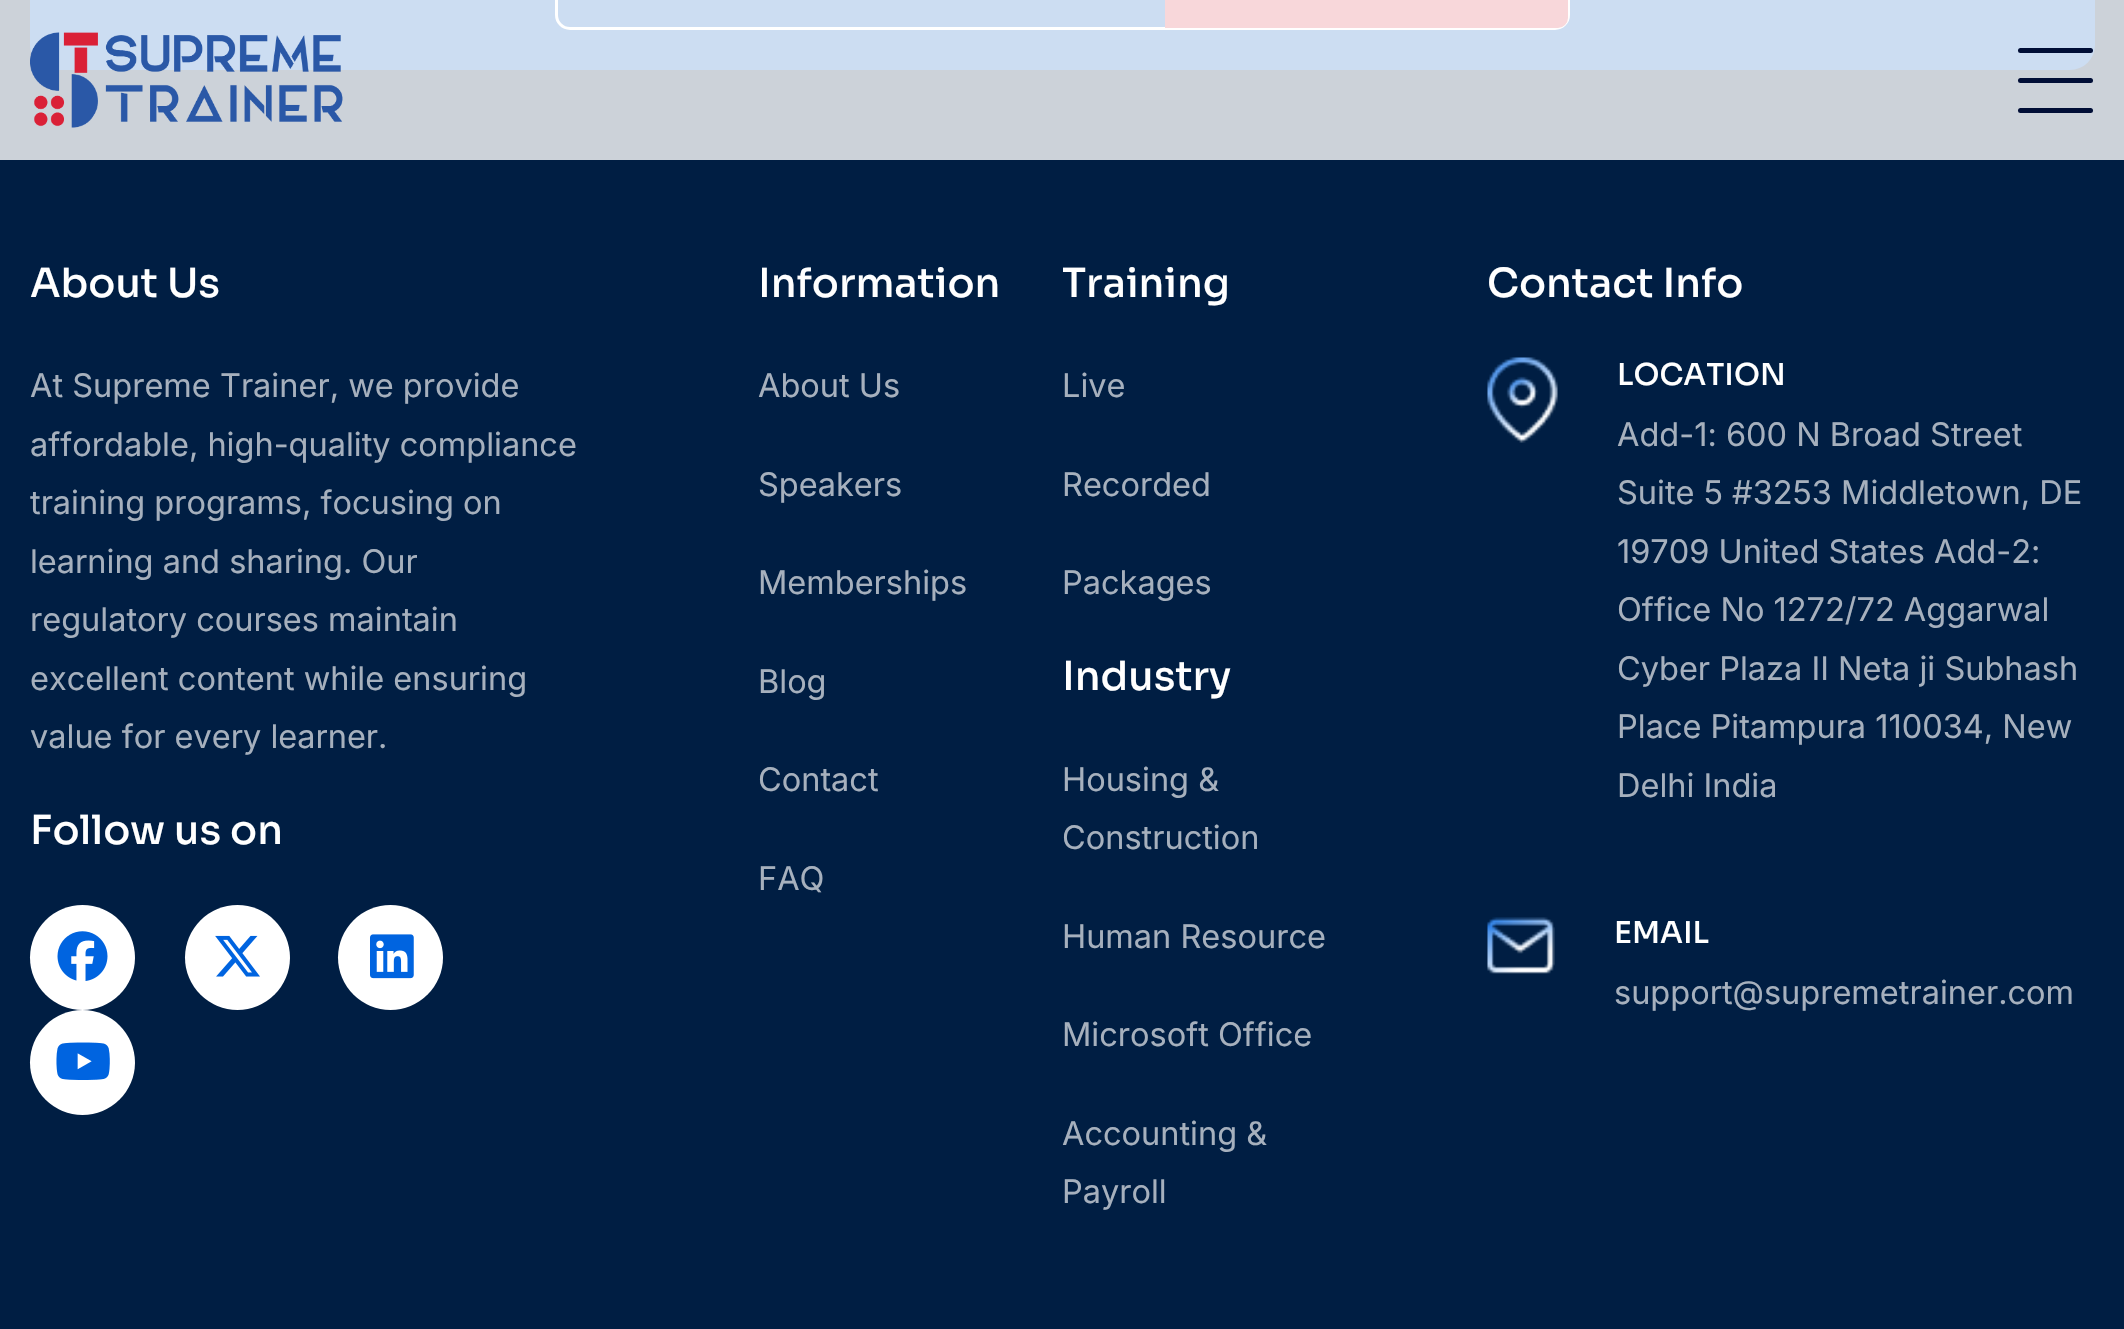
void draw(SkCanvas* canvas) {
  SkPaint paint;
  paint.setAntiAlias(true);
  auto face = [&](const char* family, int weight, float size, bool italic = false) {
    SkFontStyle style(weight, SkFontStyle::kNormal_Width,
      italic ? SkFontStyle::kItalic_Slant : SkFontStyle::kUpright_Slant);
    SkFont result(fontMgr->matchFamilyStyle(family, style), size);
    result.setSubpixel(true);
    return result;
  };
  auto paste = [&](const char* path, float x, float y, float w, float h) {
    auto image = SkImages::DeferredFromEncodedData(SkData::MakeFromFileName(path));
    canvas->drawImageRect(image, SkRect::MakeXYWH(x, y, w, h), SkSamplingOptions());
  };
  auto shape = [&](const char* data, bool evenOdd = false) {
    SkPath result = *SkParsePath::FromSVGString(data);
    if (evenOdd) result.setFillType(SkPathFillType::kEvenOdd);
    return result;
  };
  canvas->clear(0xff001e43);
  paint.setColor(0xffccd2d9);
  canvas->drawRect(SkRect::MakeXYWH(0, 0, 2124, 160), paint);
  paint.setColor(0xffccddf2);
  canvas->drawRoundRect(SkRect::MakeXYWH(30, -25, 2065, 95), 25, 25, paint);
  paste("img/1.png", 30, 32, 313, 96);
  paint.setColor(0xff000e36);
  canvas->drawRoundRect(SkRect::MakeXYWH(2018, 78, 75, 5), 2.5f, 2.5f, paint);
  canvas->drawRoundRect(SkRect::MakeXYWH(2018, 48, 75, 5), 2.5f, 2.5f, paint);
  canvas->drawRoundRect(SkRect::MakeXYWH(2018, 108, 75, 5), 2.5f, 2.5f, paint);
  paint.setStroke(true);
  paint.setStrokeWidth(3);
  paint.setColor(0xffffffff);
  canvas->drawRoundRect(SkRect::MakeXYWH(556.5f, -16.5f, 1012, 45), 13.5f, 13.5f, paint);
  paint.setStroke(false);
  paint.setColor(0xfff8d7da);
  canvas->drawPath(shape("M1166.5-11.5H1558C1562.5-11.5 1566.5-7.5 1566.5-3V18C1566.5 22.5 1562.5 26.5 1558 26.5H1166.5Z"), paint);
  paint.setStroke(true);
  canvas->drawPath(shape("M1166.5-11.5H1558C1562.5-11.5 1566.5-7.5 1566.5-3V18C1566.5 22.5 1562.5 26.5 1558 26.5H1166.5Z"), paint);
  paint.setStroke(false);
  paint.setColor(0xffffffff);
  canvas->drawCircle(82.5f, 957.5f, 52.5f, paint);
  paste("img/2.png", 57, 931, 51, 50);
  canvas->drawCircle(237.5f, 957.5f, 52.5f, paint);
  paste("img/3.png", 215, 935, 45, 42);
  canvas->drawCircle(390.5f, 957.5f, 52.5f, paint);
  paste("img/4.png", 370, 934, 44, 45);
  canvas->drawCircle(82.5f, 1062.5f, 52.5f, paint);
  paste("img/5.png", 56, 1042, 54, 38);
  paste("img/6.png", 1487, 357, 71, 86);
  paste("img/7.png", 1487, 917, 68, 57);
  auto f0 = face("Sora", 500, 40);
  canvas->drawString("About Us", 30, 297, f0, paint);
  auto f1 = face("Inter", 400, 32.5f);
  paint.setColor(0xffa6b0bd);
  {
    const struct { const char* s; float x, y; } items[] = {
      {"At Supreme Trainer, we provide", 30, 397},
      {"affordable, high-quality compliance", 30, 456},
      {"training programs, focusing on", 30, 514},
      {"learning and sharing. Our", 30, 573},
      {"regulatory courses maintain", 30, 631},
      {"excellent content while ensuring", 30, 690},
      {"value for every learner.", 30, 748},
    };
    for (auto [s, x, y] : items) {
      canvas->drawString(s, x, y, f1, paint);
    }
  }
  paint.setColor(0xffffffff);
  canvas->drawString("Follow us on", 30, 844, f0, paint);
  canvas->drawString("Information", 758, 297, f0, paint);
  paint.setColor(0xffa6b0bd);
  {
    const struct { const char* s; float x, y; } items[] = {
      {"About Us", 758, 397},
      {"Speakers", 758, 496},
      {"Memberships", 758, 594},
      {"Blog", 758, 693},
      {"Contact", 758, 791},
      {"FAQ", 758, 890},
    };
    for (auto [s, x, y] : items) {
      canvas->drawString(s, x, y, f1, paint);
    }
  }
  paint.setColor(0xffffffff);
  canvas->drawString("Training", 1062, 297, f0, paint);
  paint.setColor(0xffa6b0bd);
  {
    const struct { const char* s; float x, y; } items[] = {
      {"Live", 1062, 397},
      {"Recorded", 1062, 496},
      {"Packages", 1062, 594},
    };
    for (auto [s, x, y] : items) {
      canvas->drawString(s, x, y, f1, paint);
    }
  }
  paint.setColor(0xffffffff);
  canvas->drawString("Industry", 1062, 690, f0, paint);
  paint.setColor(0xffa6b0bd);
  {
    const struct { const char* s; float x, y; } items[] = {
      {"Housing &", 1062, 791},
      {"Construction", 1062, 849},
      {"Human Resource", 1062, 948},
      {"Microsoft Office", 1062, 1046},
      {"Accounting &", 1062, 1145},
      {"Payroll", 1062, 1203},
    };
    for (auto [s, x, y] : items) {
      canvas->drawString(s, x, y, f1, paint);
    }
  }
  paint.setColor(0xffffffff);
  canvas->drawString("Contact Info", 1487, 297, f0, paint);
  auto f2 = face("Sora", 500, 30);
  canvas->drawString("LOCATION", 1617, 385, f2, paint);
  paint.setColor(0xffa6b0bd);
  {
    const struct { const char* s; float x, y; } items[] = {
      {"Add-1: 600 N Broad Street", 1617, 446},
      {"Suite 5 #3253 Middletown, DE", 1617, 504},
      {"19709 United States Add-2:", 1617, 563},
      {"Office No 1272/72 Aggarwal", 1617, 621},
      {"Cyber Plaza II Neta ji Subhash", 1617, 680},
      {"Place Pitampura 110034, New", 1617, 738},
      {"Delhi India", 1617, 797},
    };
    for (auto [s, x, y] : items) {
      canvas->drawString(s, x, y, f1, paint);
    }
  }
  paint.setColor(0xffffffff);
  canvas->drawString("EMAIL", 1614, 943, f2, paint);
  paint.setColor(0xffa6b0bd);
  canvas->drawString("support@supremetrainer.com", 1614, 1004, f1, paint);
}
